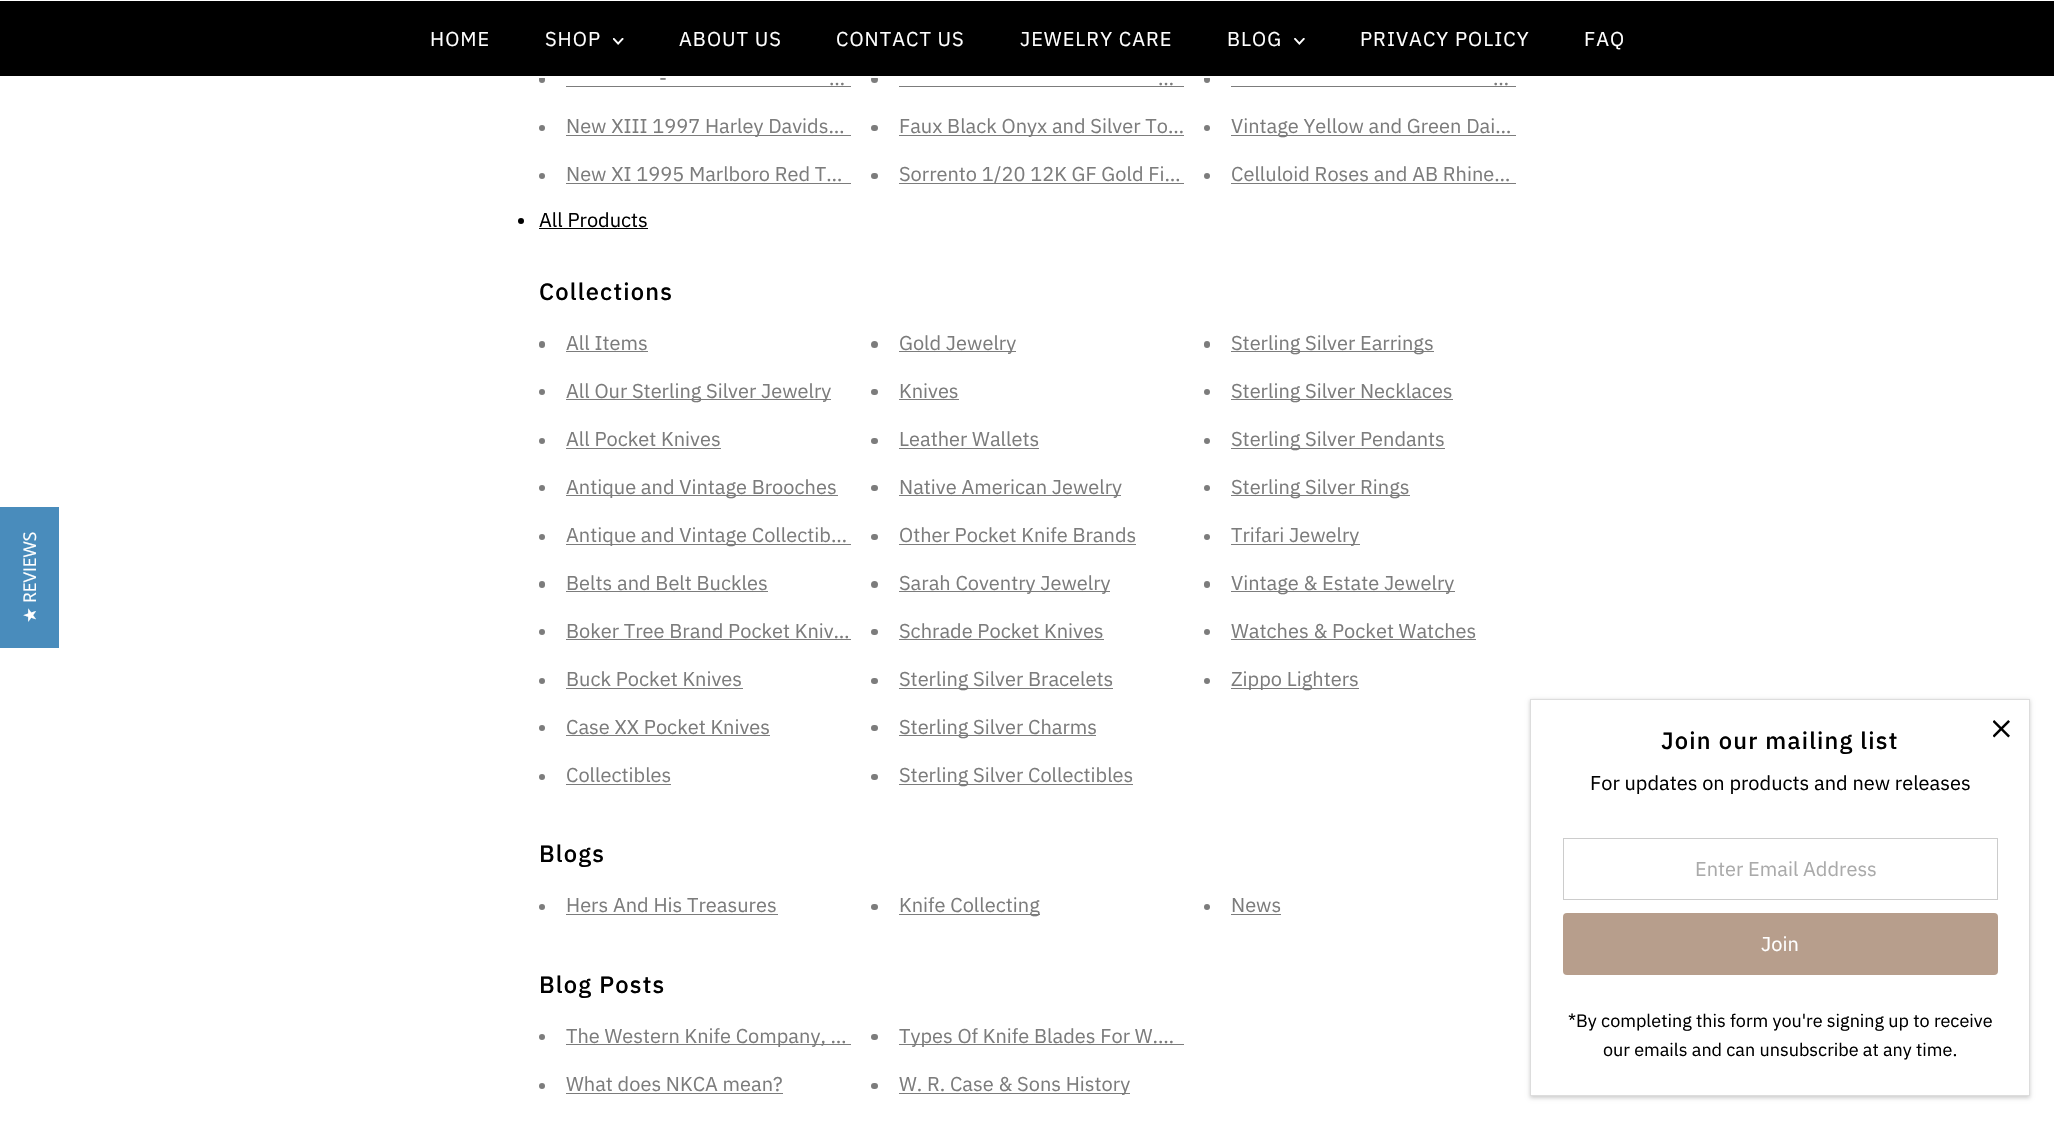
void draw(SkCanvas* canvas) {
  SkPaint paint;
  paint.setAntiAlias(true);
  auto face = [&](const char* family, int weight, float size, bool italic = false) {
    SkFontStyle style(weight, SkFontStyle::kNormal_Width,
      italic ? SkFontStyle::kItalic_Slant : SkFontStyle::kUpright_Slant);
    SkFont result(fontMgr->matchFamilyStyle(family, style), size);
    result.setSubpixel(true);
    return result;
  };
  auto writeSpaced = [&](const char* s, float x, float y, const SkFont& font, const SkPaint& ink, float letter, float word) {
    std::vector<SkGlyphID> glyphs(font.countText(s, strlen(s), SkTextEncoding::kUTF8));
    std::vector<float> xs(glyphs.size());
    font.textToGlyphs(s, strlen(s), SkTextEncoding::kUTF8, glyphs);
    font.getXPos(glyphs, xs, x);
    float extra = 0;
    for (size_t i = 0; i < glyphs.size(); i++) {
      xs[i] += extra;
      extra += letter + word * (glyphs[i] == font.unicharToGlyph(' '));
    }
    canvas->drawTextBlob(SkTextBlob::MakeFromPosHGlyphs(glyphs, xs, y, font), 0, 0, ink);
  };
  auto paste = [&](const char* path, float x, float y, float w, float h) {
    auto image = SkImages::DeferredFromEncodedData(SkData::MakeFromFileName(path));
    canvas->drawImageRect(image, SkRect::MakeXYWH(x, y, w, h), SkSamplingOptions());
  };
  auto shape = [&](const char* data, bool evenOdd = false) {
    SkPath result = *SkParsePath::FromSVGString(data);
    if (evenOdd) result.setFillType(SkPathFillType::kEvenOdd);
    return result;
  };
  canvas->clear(0xffffffff);
  paint.setColor(0xff498cbc);
  canvas->drawRect(SkRect::MakeXYWH(0, 507, 59, 141), paint);
  paint.setColor(0xff7c7c7c);
  canvas->drawRoundRect(SkRect::MakeXYWH(539, 76, 6, 7), 3, 3, paint);
  canvas->drawCircle(874.5f, 79.5f, 3.5f, paint);
  canvas->drawRoundRect(SkRect::MakeXYWH(1204, 76, 6, 7), 3, 3, paint);
  paint.setColor(0xffffffff);
  canvas->drawRect(SkRect::MakeXYWH(539, 76, 671, 2), paint);
  paint.setColor(0xff000000);
  canvas->drawRect(SkRect::MakeXYWH(0, 1, 2054, 75), paint);
  paste("img/1.png", 613, 38, 11, 7);
  paste("img/2.png", 1294, 38, 11, 7);
  {
    const struct { float x, y, w, h; SkColor color; } items[] = {
      {566, 86, 285, 1, 0xff7c7c7c},
      {899, 86, 285, 1, 0xff7c7c7c},
      {1231, 86, 285, 1, 0xff7c7c7c},
    };
    for (auto [x, y, w, h, color] : items) {
      paint.setColor(color);
      canvas->drawRect(SkRect::MakeXYWH(x, y, w, h), paint);
    }
  }
  canvas->drawCircle(542, 128, 3, paint);
  canvas->drawRect(SkRect::MakeXYWH(566, 135, 285, 1), paint);
  canvas->drawRoundRect(SkRect::MakeXYWH(871, 125, 7, 6), 3, 3, paint);
  canvas->drawRect(SkRect::MakeXYWH(899, 135, 285, 1), paint);
  canvas->drawCircle(1207, 128, 3, paint);
  canvas->drawRect(SkRect::MakeXYWH(1231, 135, 285, 1), paint);
  canvas->drawCircle(542, 176, 3, paint);
  canvas->drawRect(SkRect::MakeXYWH(566, 183, 285, 1), paint);
  canvas->drawRoundRect(SkRect::MakeXYWH(871, 173, 7, 6), 3, 3, paint);
  canvas->drawRect(SkRect::MakeXYWH(899, 183, 285, 1), paint);
  canvas->drawCircle(1207, 176, 3, paint);
  canvas->drawRect(SkRect::MakeXYWH(1231, 183, 285, 1), paint);
  paint.setColor(0xff000000);
  canvas->drawCircle(521, 221, 3, paint);
  canvas->drawRect(SkRect::MakeXYWH(539, 228, 109, 1), paint);
  paint.setColor(0xff7c7c7c);
  canvas->drawRoundRect(SkRect::MakeXYWH(539, 341, 6, 7), 3, 3, paint);
  canvas->drawRect(SkRect::MakeXYWH(566, 351, 82, 1), paint);
  canvas->drawCircle(874.5f, 344.5f, 3.5f, paint);
  canvas->drawRect(SkRect::MakeXYWH(899, 351, 117, 1), paint);
  canvas->drawRoundRect(SkRect::MakeXYWH(1204, 341, 6, 7), 3, 3, paint);
  canvas->drawRect(SkRect::MakeXYWH(1231, 351, 203, 1), paint);
  canvas->drawCircle(542, 392, 3, paint);
  canvas->drawRect(SkRect::MakeXYWH(566, 399, 265, 1), paint);
  canvas->drawRoundRect(SkRect::MakeXYWH(871, 389, 7, 6), 3, 3, paint);
  canvas->drawRect(SkRect::MakeXYWH(899, 399, 60, 1), paint);
  canvas->drawCircle(1207, 392, 3, paint);
  canvas->drawRect(SkRect::MakeXYWH(1231, 399, 222, 1), paint);
  canvas->drawCircle(542, 441, 3, paint);
  canvas->drawRect(SkRect::MakeXYWH(566, 448, 155, 1), paint);
  canvas->drawRoundRect(SkRect::MakeXYWH(871, 438, 7, 6), 3, 3, paint);
  canvas->drawRect(SkRect::MakeXYWH(899, 448, 140, 1), paint);
  canvas->drawCircle(1207, 441, 3, paint);
  canvas->drawRect(SkRect::MakeXYWH(1231, 448, 214, 1), paint);
  canvas->drawCircle(542, 488, 3, paint);
  canvas->drawRect(SkRect::MakeXYWH(566, 495, 272, 1), paint);
  canvas->drawRoundRect(SkRect::MakeXYWH(871, 485, 7, 6), 3, 3, paint);
  canvas->drawRect(SkRect::MakeXYWH(899, 495, 222, 1), paint);
  canvas->drawCircle(1207, 488, 3, paint);
  canvas->drawRect(SkRect::MakeXYWH(1231, 495, 179, 1), paint);
  canvas->drawCircle(542, 537, 3, paint);
  canvas->drawRect(SkRect::MakeXYWH(566, 544, 285, 1), paint);
  canvas->drawRoundRect(SkRect::MakeXYWH(871, 534, 7, 6), 3, 3, paint);
  canvas->drawRect(SkRect::MakeXYWH(899, 544, 237, 1), paint);
  canvas->drawCircle(1207, 537, 3, paint);
  canvas->drawRect(SkRect::MakeXYWH(1231, 544, 129, 1), paint);
  canvas->drawRoundRect(SkRect::MakeXYWH(539, 581, 6, 7), 3, 3, paint);
  canvas->drawRect(SkRect::MakeXYWH(566, 591, 202, 1), paint);
  canvas->drawCircle(874.5f, 584.5f, 3.5f, paint);
  canvas->drawRect(SkRect::MakeXYWH(899, 591, 211, 1), paint);
  canvas->drawRoundRect(SkRect::MakeXYWH(1204, 581, 6, 7), 3, 3, paint);
  canvas->drawRect(SkRect::MakeXYWH(1231, 591, 224, 1), paint);
  canvas->drawCircle(542, 632, 3, paint);
  canvas->drawRect(SkRect::MakeXYWH(566, 639, 285, 1), paint);
  canvas->drawRoundRect(SkRect::MakeXYWH(871, 629, 7, 6), 3, 3, paint);
  canvas->drawRect(SkRect::MakeXYWH(899, 639, 205, 1), paint);
  canvas->drawCircle(1207, 632, 3, paint);
  canvas->drawRect(SkRect::MakeXYWH(1231, 639, 245, 1), paint);
  canvas->drawCircle(542, 681, 3, paint);
  canvas->drawRect(SkRect::MakeXYWH(566, 688, 177, 1), paint);
  canvas->drawRoundRect(SkRect::MakeXYWH(871, 678, 7, 6), 3, 3, paint);
  canvas->drawRect(SkRect::MakeXYWH(899, 688, 214, 1), paint);
  canvas->drawCircle(1207, 681, 3, paint);
  canvas->drawRect(SkRect::MakeXYWH(1231, 688, 128, 1), paint);
  canvas->drawCircle(542, 728, 3, paint);
  canvas->drawRect(SkRect::MakeXYWH(566, 735, 204, 1), paint);
  canvas->drawRoundRect(SkRect::MakeXYWH(871, 725, 7, 6), 3, 3, paint);
  canvas->drawRect(SkRect::MakeXYWH(899, 735, 197, 1), paint);
  canvas->drawCircle(542, 777, 3, paint);
  canvas->drawRect(SkRect::MakeXYWH(566, 784, 105, 1), paint);
  canvas->drawRoundRect(SkRect::MakeXYWH(871, 774, 7, 6), 3, 3, paint);
  canvas->drawRect(SkRect::MakeXYWH(899, 784, 234, 1), paint);
  canvas->drawCircle(542, 907, 3, paint);
  canvas->drawRect(SkRect::MakeXYWH(566, 914, 212, 1), paint);
  canvas->drawRoundRect(SkRect::MakeXYWH(871, 904, 7, 6), 3, 3, paint);
  canvas->drawRect(SkRect::MakeXYWH(899, 914, 141, 1), paint);
  canvas->drawCircle(1207, 907, 3, paint);
  canvas->drawRect(SkRect::MakeXYWH(1231, 914, 50, 1), paint);
  canvas->drawCircle(542, 1037, 3, paint);
  canvas->drawRect(SkRect::MakeXYWH(566, 1044, 285, 1), paint);
  canvas->drawRoundRect(SkRect::MakeXYWH(871, 1034, 7, 6), 3, 3, paint);
  canvas->drawRect(SkRect::MakeXYWH(899, 1044, 285, 1), paint);
  canvas->drawCircle(542, 1086, 3, paint);
  canvas->drawRect(SkRect::MakeXYWH(566, 1093, 217, 1), paint);
  canvas->drawRoundRect(SkRect::MakeXYWH(871, 1083, 7, 6), 3, 3, paint);
  canvas->drawRect(SkRect::MakeXYWH(899, 1093, 231, 1), paint);
  canvas->save();
  canvas->clipPath(shape("M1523 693H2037V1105H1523ZM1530 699H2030V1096H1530Z", true), true);
  paint.setColor(0x33000000);
  paint.setMaskFilter(SkMaskFilter::MakeBlur(kNormal_SkBlurStyle, 2));
  canvas->drawRect(SkRect::MakeXYWH(1530, 700, 500, 398), paint);
  paint.setMaskFilter(nullptr);
  canvas->restore();
  paint.setStroke(true);
  paint.setStrokeWidth(1);
  paint.setColor(0xffdddddd);
  canvas->drawRect(SkRect::MakeXYWH(1530.5f, 699.5f, 499, 396), paint);
  paste("img/3.png", 1993, 720, 17, 18);
  paint.setColor(0xffcccccc);
  canvas->drawRect(SkRect::MakeXYWH(1563.5f, 838.5f, 434, 61), paint);
  paint.setStroke(false);
  paint.setColor(0xffb79e8c);
  canvas->drawRoundRect(SkRect::MakeXYWH(1563, 913, 435, 62), 4, 4, paint);
  auto f0 = face("Open Sans", 400, 17.5f);
  paint.setColor(0xffffffff);
  canvas->save();
  canvas->rotate(-90, 36, 603);
  canvas->drawString("REVIEWS", 36, 603, f0, paint);
  canvas->restore();
  auto f1 = face("DejaVu Sans", 400, 17.5f);
  canvas->save();
  canvas->rotate(-90, 36, 623);
  canvas->drawString("★", 36, 623, f1, paint);
  canvas->restore();
  auto f2 = face("IBM Plex Sans", 400, 20);
  {
    const struct { const char* s; float x, y; } items[] = {
      {"HOME", 430, 46},
      {"SHOP", 545, 46},
      {"ABOUT US", 679, 46},
      {"CONTACT US", 836, 46},
      {"JEWELRY CARE", 1020, 46},
      {"BLOG", 1227, 46},
      {"PRIVACY POLICY", 1360, 46},
      {"FAQ", 1584, 46},
    };
    for (auto [s, x, y] : items) {
      writeSpaced(s, x, y, f2, paint, 1, 0);
    }
  }
  paint.setColor(0xff7c7c7c);
  {
    const struct { const char* s; float x, y; } items[] = {
      {"-", 659, 85},
      {"…", 829, 85},
      {"…", 1158, 85},
      {"…", 1493, 85},
      {"New XIII 1997 Harley Davids…", 566, 133},
      {"Faux Black Onyx and Silver To…", 899, 133},
      {"Vintage Yellow and Green Dai…", 1231, 133},
      {"New XI 1995 Marlboro Red T…", 566, 181},
      {"Sorrento 1/20 12K GF Gold Fi…", 899, 181},
      {"Celluloid Roses and AB Rhine…", 1231, 181},
    };
    for (auto [s, x, y] : items) {
      canvas->drawString(s, x, y, f2, paint);
    }
  }
  paint.setColor(0xff000000);
  canvas->drawString("All Products", 539, 227, f2, paint);
  auto f3 = face("IBM Plex Sans", 500, 23.75f);
  writeSpaced("Collections", 539, 300, f3, paint, 1.2f, 0);
  paint.setColor(0xff7c7c7c);
  {
    const struct { const char* s; float x, y; } items[] = {
      {"All Items", 566, 350},
      {"Gold Jewelry", 899, 350},
      {"Sterling Silver Earrings", 1231, 350},
      {"All Our Sterling Silver Jewelry", 566, 398},
      {"Knives", 899, 398},
      {"Sterling Silver Necklaces", 1231, 398},
      {"All Pocket Knives", 566, 446},
      {"Leather Wallets", 899, 446},
      {"Sterling Silver Pendants", 1231, 446},
      {"Antique and Vintage Brooches", 566, 494},
      {"Native American Jewelry", 899, 494},
      {"Sterling Silver Rings", 1231, 494},
      {"Antique and Vintage Collectib…", 566, 542},
      {"Other Pocket Knife Brands", 899, 542},
      {"Trifari Jewelry", 1231, 542},
      {"Belts and Belt Buckles", 566, 590},
      {"Sarah Coventry Jewelry", 899, 590},
      {"Vintage & Estate Jewelry", 1231, 590},
      {"Boker Tree Brand Pocket Kniv…", 566, 638},
      {"Schrade Pocket Knives", 899, 638},
      {"Watches & Pocket Watches", 1231, 638},
      {"Buck Pocket Knives", 566, 686},
      {"Sterling Silver Bracelets", 899, 686},
      {"Zippo Lighters", 1231, 686},
      {"Case XX Pocket Knives", 566, 734},
      {"Sterling Silver Charms", 899, 734},
      {"Collectibles", 566, 782},
      {"Sterling Silver Collectibles", 899, 782},
    };
    for (auto [s, x, y] : items) {
      canvas->drawString(s, x, y, f2, paint);
    }
  }
  paint.setColor(0xff000000);
  writeSpaced("Blogs", 539, 862, f3, paint, 1.2f, 0);
  paint.setColor(0xff7c7c7c);
  {
    const struct { const char* s; float x, y; } items[] = {
      {"Hers And His Treasures", 566, 912},
      {"Knife Collecting", 899, 912},
      {"News", 1231, 912},
    };
    for (auto [s, x, y] : items) {
      canvas->drawString(s, x, y, f2, paint);
    }
  }
  paint.setColor(0xff000000);
  writeSpaced("Blog Posts", 539, 993, f3, paint, 1.2f, 0);
  paint.setColor(0xff7c7c7c);
  {
    const struct { const char* s; float x, y; } items[] = {
      {"The Western Knife Company, …", 566, 1043},
      {"Types Of Knife Blades For W.…", 899, 1043},
      {"What does NKCA mean?", 566, 1091},
      {"W. R. Case & Sons History", 899, 1091},
    };
    for (auto [s, x, y] : items) {
      canvas->drawString(s, x, y, f2, paint);
    }
  }
  paint.setColor(0xff000000);
  writeSpaced("Join our mailing list", 1661, 749, f3, paint, 1.2f, 0);
  canvas->drawString("For updates on products and new releases", 1590, 790, f2, paint);
  paint.setColor(0xffaaaaaa);
  canvas->drawString("Enter Email Address", 1695, 876, f2, paint);
  paint.setColor(0xffffffff);
  canvas->drawString("Join", 1761, 951, f2, paint);
  auto f4 = face("IBM Plex Sans", 400, 18);
  paint.setColor(0xff000000);
  canvas->drawString("*By completing this form you're signing up to receive", 1568, 1027, f4, paint);
  canvas->drawString("our emails and can unsubscribe at any time.", 1603, 1056, f4, paint);
}
